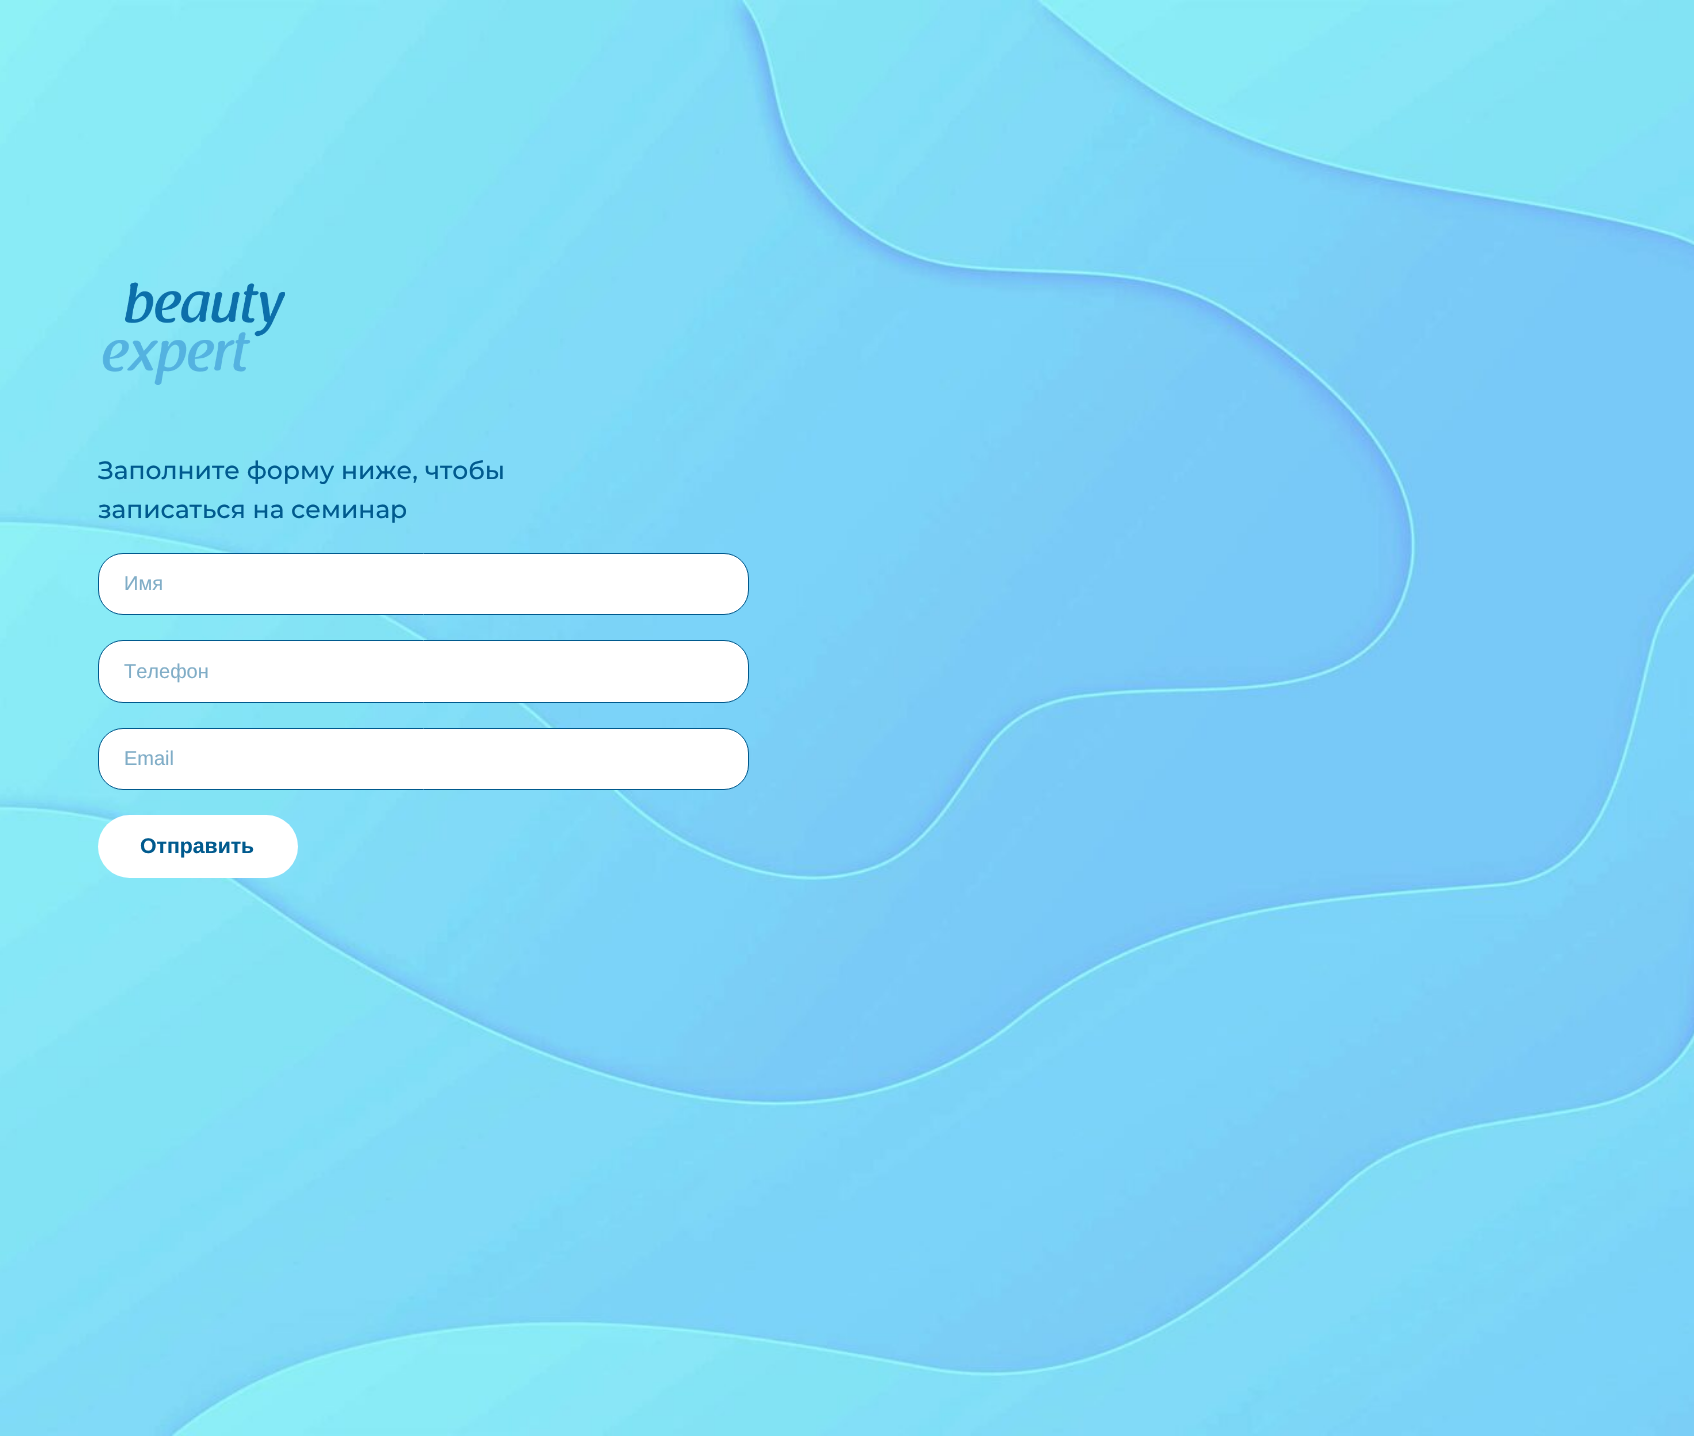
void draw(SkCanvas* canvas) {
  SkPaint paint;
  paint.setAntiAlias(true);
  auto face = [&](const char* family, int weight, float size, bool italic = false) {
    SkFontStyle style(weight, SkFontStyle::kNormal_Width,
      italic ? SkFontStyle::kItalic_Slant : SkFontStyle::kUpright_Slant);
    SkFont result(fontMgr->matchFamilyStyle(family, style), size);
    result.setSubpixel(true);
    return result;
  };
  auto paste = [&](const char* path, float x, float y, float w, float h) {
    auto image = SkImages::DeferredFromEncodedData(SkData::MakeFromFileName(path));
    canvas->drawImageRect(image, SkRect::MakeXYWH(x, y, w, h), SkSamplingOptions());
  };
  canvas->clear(0xffffffff);
  paste("img/1.png", 0, 0, 1694, 1436);
  paste("img/2.png", 102, 282, 183, 103);
  paint.setColor(0xffffffff);
  canvas->drawRoundRect(SkRect::MakeXYWH(98.5f, 553.5f, 650, 61), 24.5f, 24.5f, paint);
  paint.setStroke(true);
  paint.setStrokeWidth(1);
  paint.setColor(0xff005a8e);
  canvas->drawRoundRect(SkRect::MakeXYWH(98.5f, 553.5f, 650, 61), 24.5f, 24.5f, paint);
  paint.setStroke(false);
  paint.setColor(0xffffffff);
  canvas->drawRoundRect(SkRect::MakeXYWH(98.5f, 640.5f, 650, 62), 24.5f, 24.5f, paint);
  paint.setStroke(true);
  paint.setColor(0xff005a8e);
  canvas->drawRoundRect(SkRect::MakeXYWH(98.5f, 640.5f, 650, 62), 24.5f, 24.5f, paint);
  paint.setStroke(false);
  paint.setColor(0xffffffff);
  canvas->drawRoundRect(SkRect::MakeXYWH(98.5f, 728.5f, 650, 61), 24.5f, 24.5f, paint);
  paint.setStroke(true);
  paint.setColor(0xff005a8e);
  canvas->drawRoundRect(SkRect::MakeXYWH(98.5f, 728.5f, 650, 61), 24.5f, 24.5f, paint);
  paint.setStroke(false);
  paint.setColor(0xffffffff);
  canvas->drawRoundRect(SkRect::MakeXYWH(98, 815, 200, 63), 31.5f, 31.5f, paint);
  auto f0 = face("Montserrat", 500, 25);
  paint.setColor(0xff005a8e);
  canvas->drawString("Заполните форму ниже, чтобы", 98, 479, f0, paint);
  canvas->drawString("записаться на семинар", 98, 518, f0, paint);
  auto f1 = face("Liberation Sans", 400, 20);
  paint.setColor(0xff80adc7);
  {
    const struct { const char* s; float x, y; } items[] = {
      {"Имя", 124, 590},
      {"Телефон", 124, 678},
      {"Email", 124, 765},
    };
    for (auto [s, x, y] : items) {
      canvas->drawString(s, x, y, f1, paint);
    }
  }
  auto f2 = face("Liberation Sans", 700, 21.25f);
  paint.setColor(0xff005a8e);
  canvas->drawString("Отправить", 140, 853, f2, paint);
}
